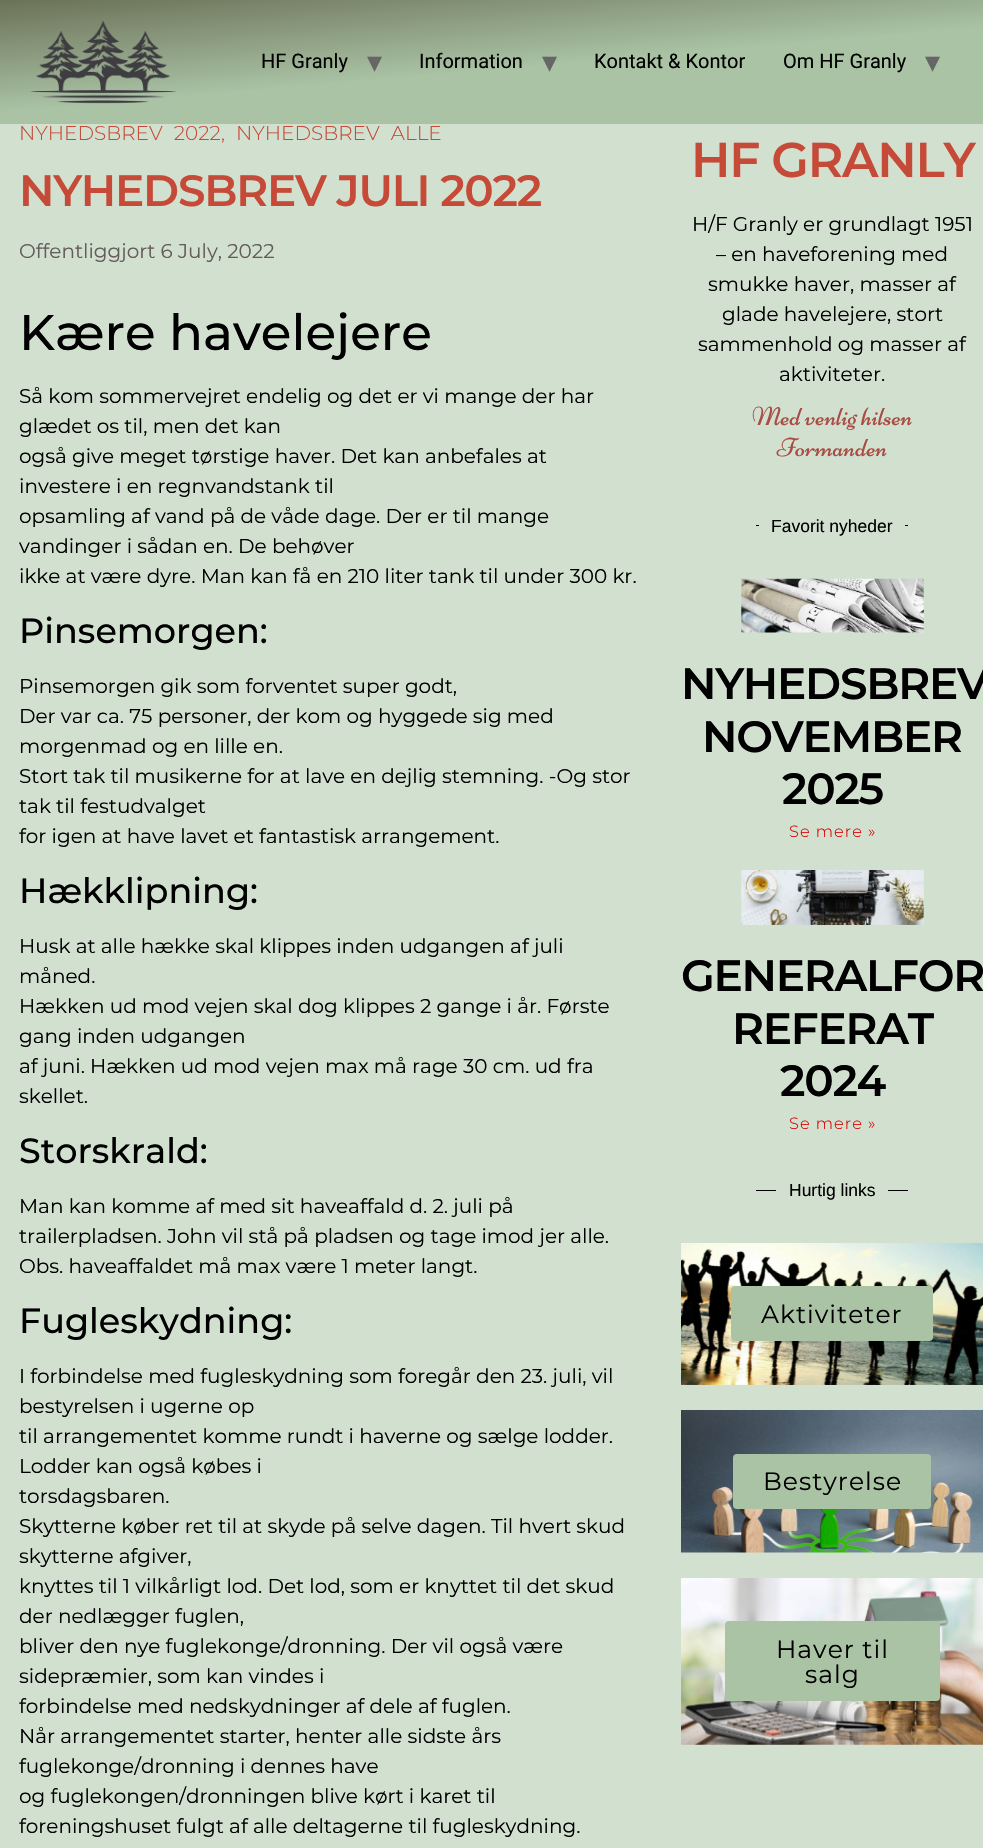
void draw(SkCanvas* canvas) {
  SkPaint paint;
  paint.setAntiAlias(true);
  auto face = [&](const char* family, int weight, float size, bool italic = false) {
    SkFontStyle style(weight, SkFontStyle::kNormal_Width,
      italic ? SkFontStyle::kItalic_Slant : SkFontStyle::kUpright_Slant);
    SkFont result(fontMgr->matchFamilyStyle(family, style), size);
    result.setSubpixel(true);
    return result;
  };
  auto writeSpaced = [&](const char* s, float x, float y, const SkFont& font, const SkPaint& ink, float letter, float word) {
    std::vector<SkGlyphID> glyphs(font.countText(s, strlen(s), SkTextEncoding::kUTF8));
    std::vector<float> xs(glyphs.size());
    font.textToGlyphs(s, strlen(s), SkTextEncoding::kUTF8, glyphs);
    font.getXPos(glyphs, xs, x);
    float extra = 0;
    for (size_t i = 0; i < glyphs.size(); i++) {
      xs[i] += extra;
      extra += letter + word * (glyphs[i] == font.unicharToGlyph(' '));
    }
    canvas->drawTextBlob(SkTextBlob::MakeFromPosHGlyphs(glyphs, xs, y, font), 0, 0, ink);
  };
  auto paste = [&](const char* path, float x, float y, float w, float h) {
    auto image = SkImages::DeferredFromEncodedData(SkData::MakeFromFileName(path));
    canvas->drawImageRect(image, SkRect::MakeXYWH(x, y, w, h), SkSamplingOptions());
  };
  canvas->clear(0xffd2e0d0);
  {
    const SkColor colors[] = {0xff6b7157, 0xffaac3a5};
    const float stops[] = {0, 0.54f};
    const SkPoint ends[] = {{483, -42}, {501, 166}};
    paint.setShader(SkGradientShader::MakeLinear(ends, colors, stops, 2, SkTileMode::kClamp));
    paint.setAlpha(255);
  }
  canvas->drawRect(SkRect::MakeXYWH(0, 0, 983, 124), paint);
  paste("img/1.png", 28, 20, 150, 84);
  paint.setShader(nullptr);
  paint.setColor(0xff000000);
  canvas->drawRect(SkRect::MakeXYWH(756, 525, 3, 1), paint);
  canvas->drawRect(SkRect::MakeXYWH(905, 525, 3, 1), paint);
  paste("img/2.png", 741, 578, 183, 55);
  paste("img/3.png", 741, 870, 183, 55);
  canvas->drawRect(SkRect::MakeXYWH(756, 1190, 20, 1), paint);
  canvas->drawRect(SkRect::MakeXYWH(888, 1190, 20, 1), paint);
  paste("img/4.png", 681, 1243, 302, 142);
  paint.setColor(0xffaac3a5);
  canvas->drawRoundRect(SkRect::MakeXYWH(731, 1286, 202, 55), 4, 4, paint);
  paste("img/5.png", 681, 1410, 302, 143);
  canvas->drawRoundRect(SkRect::MakeXYWH(733, 1454, 198, 55), 4, 4, paint);
  paste("img/6.png", 681, 1578, 302, 167);
  canvas->drawRoundRect(SkRect::MakeXYWH(725, 1621, 215, 80), 4, 4, paint);
  auto f0 = face("Roboto", 400, 20);
  paint.setColor(0xff000000);
  canvas->drawString("HF Granly", 261, 68, f0, paint);
  auto f1 = face("DejaVu Sans", 400, 30);
  paint.setColor(0xff666666);
  canvas->drawString("▾", 367, 72, f1, paint);
  paint.setColor(0xff000000);
  canvas->drawString("Information", 419, 68, f0, paint);
  paint.setColor(0xff666666);
  canvas->drawString("▾", 542, 72, f1, paint);
  paint.setColor(0xff000000);
  canvas->drawString("Kontakt & Kontor", 594, 68, f0, paint);
  canvas->drawString("Om HF Granly", 783, 68, f0, paint);
  paint.setColor(0xff666666);
  canvas->drawString("▾", 925, 72, f1, paint);
  auto f2 = face("Montserrat", 300, 20);
  paint.setColor(0xffc64a38);
  writeSpaced("NYHEDSBREV 2022", 19, 140, f2, paint, 0, 6);
  canvas->drawString(",", 221, 140, f2, paint);
  writeSpaced("NYHEDSBREV ALLE", 236, 140, f2, paint, 0, 6);
  auto f3 = face("Montserrat", 600, 43.75f);
  writeSpaced("NYHEDSBREV JULI 2022", 19, 206, f3, paint, -1.25f, 0);
  auto f4 = face("Montserrat", 400, 20);
  paint.setColor(0xff645b5b);
  canvas->drawString("Offentliggjort 6 July, 2022", 19, 258, f4, paint);
  auto f5 = face("Montserrat", 500, 50);
  paint.setColor(0xff000000);
  canvas->drawString("Kære havelejere", 19, 350, f5, paint);
  {
    const struct { const char* s; float x, y; } items[] = {
      {"Så kom sommervejret endelig og det er vi mange der har", 19, 403},
      {"glædet os til, men det kan", 19, 433},
      {"også give meget tørstige haver. Det kan anbefales at", 19, 463},
      {"investere i en regnvandstank til", 19, 493},
      {"opsamling af vand på de våde dage. Der er til mange", 19, 523},
      {"vandinger i sådan en. De behøver", 19, 553},
      {"ikke at være dyre. Man kan få en 210 liter tank til under 300 kr.", 19, 583},
    };
    for (auto [s, x, y] : items) {
      canvas->drawString(s, x, y, f4, paint);
    }
  }
  auto f6 = face("Montserrat", 500, 35);
  canvas->drawString("Pinsemorgen:", 19, 643, f6, paint);
  {
    const struct { const char* s; float x, y; } items[] = {
      {"Pinsemorgen gik som forventet super godt,", 19, 693},
      {"Der var ca. 75 personer, der kom og hyggede sig med", 19, 723},
      {"morgenmad og en lille en.", 19, 753},
      {"Stort tak til musikerne for at lave en dejlig stemning. -Og stor", 19, 783},
      {"tak til festudvalget", 19, 813},
      {"for igen at have lavet et fantastisk arrangement.", 19, 843},
    };
    for (auto [s, x, y] : items) {
      canvas->drawString(s, x, y, f4, paint);
    }
  }
  canvas->drawString("Hækklipning:", 19, 903, f6, paint);
  {
    const struct { const char* s; float x, y; } items[] = {
      {"Husk at alle hække skal klippes inden udgangen af juli", 19, 953},
      {"måned.", 19, 983},
      {"Hækken ud mod vejen skal dog klippes 2 gange i år. Første", 19, 1013},
      {"gang inden udgangen", 19, 1043},
      {"af juni. Hækken ud mod vejen max må rage 30 cm. ud fra", 19, 1073},
      {"skellet.", 19, 1103},
    };
    for (auto [s, x, y] : items) {
      canvas->drawString(s, x, y, f4, paint);
    }
  }
  canvas->drawString("Storskrald:", 19, 1163, f6, paint);
  {
    const struct { const char* s; float x, y; } items[] = {
      {"Man kan komme af med sit haveaffald d. 2. juli på", 19, 1213},
      {"trailerpladsen. John vil stå på pladsen og tage imod jer alle.", 19, 1243},
      {"Obs. haveaffaldet må max være 1 meter langt.", 19, 1273},
    };
    for (auto [s, x, y] : items) {
      canvas->drawString(s, x, y, f4, paint);
    }
  }
  canvas->drawString("Fugleskydning:", 19, 1333, f6, paint);
  {
    const struct { const char* s; float x, y; } items[] = {
      {"I forbindelse med fugleskydning som foregår den 23. juli, vil", 19, 1383},
      {"bestyrelsen i ugerne op", 19, 1413},
      {"til arrangementet komme rundt i haverne og sælge lodder.", 19, 1443},
      {"Lodder kan også købes i", 19, 1473},
      {"torsdagsbaren.", 19, 1503},
      {"Skytterne køber ret til at skyde på selve dagen. Til hvert skud", 19, 1533},
      {"skytterne afgiver,", 19, 1563},
      {"knyttes til 1 vilkårligt lod. Det lod, som er knyttet til det skud", 19, 1593},
      {"der nedlægger fuglen,", 19, 1623},
      {"bliver den nye fuglekonge/dronning. Der vil også være", 19, 1653},
      {"sidepræmier, som kan vindes i", 19, 1683},
      {"forbindelse med nedskydninger af dele af fuglen.", 19, 1713},
      {"Når arrangementet starter, henter alle sidste års", 19, 1743},
      {"fuglekonge/dronning i dennes have", 19, 1773},
      {"og fuglekongen/dronningen blive kørt i karet til", 19, 1803},
      {"foreningshuset fulgt af alle deltagerne til fugleskydning.", 19, 1833},
    };
    for (auto [s, x, y] : items) {
      canvas->drawString(s, x, y, f4, paint);
    }
  }
  auto f7 = face("Montserrat", 600, 48.75f);
  paint.setColor(0xffc64a38);
  writeSpaced("HF GRANLY", 691, 177, f7, paint, -1.25f, 0);
  paint.setColor(0xff000000);
  {
    const struct { const char* s; float x, y; } items[] = {
      {"H/F Granly er grundlagt 1951", 692, 231},
      {"– en haveforening med", 716, 261},
      {"smukke haver, masser af", 708, 291},
      {"glade havelejere, stort", 722, 321},
      {"sammenhold og masser af", 698, 351},
      {"aktiviteter.", 779, 381},
    };
    for (auto [s, x, y] : items) {
      canvas->drawString(s, x, y, f4, paint);
    }
  }
  auto f8 = face("Niconne", 400, 26.25f);
  paint.setColor(0xffa84c44);
  canvas->drawString("Med venlig hilsen", 752, 425, f8, paint);
  canvas->drawString("Formanden", 777, 456, f8, paint);
  auto f9 = face("Liberation Sans", 400, 17.5f);
  paint.setColor(0xff000000);
  canvas->drawString("Favorit nyheder", 771, 532, f9, paint);
  {
    const struct { const char* s; float x, y; } items[] = {
      {"NYHEDSBREV", 681, 699},
      {"NOVEMBER", 702, 752},
      {"2025", 782, 804},
    };
    for (auto [s, x, y] : items) {
      writeSpaced(s, x, y, f3, paint, -1.25f, 0);
    }
  }
  auto f10 = face("Montserrat", 300, 16.25f);
  paint.setColor(0xffdb0000);
  writeSpaced("Se mere »", 789, 837, f10, paint, 1, 0);
  paint.setColor(0xff000000);
  {
    const struct { const char* s; float x, y; } items[] = {
      {"GENERALFOR", 681, 991},
      {"REFERAT", 732, 1044},
      {"2024", 780, 1096},
    };
    for (auto [s, x, y] : items) {
      writeSpaced(s, x, y, f3, paint, -1.25f, 0);
    }
  }
  paint.setColor(0xffdb0000);
  writeSpaced("Se mere »", 789, 1129, f10, paint, 1, 0);
  paint.setColor(0xff000000);
  canvas->drawString("Hurtig links", 789, 1196, f9, paint);
  auto f11 = face("Montserrat", 400, 25);
  {
    const struct { const char* s; float x, y; } items[] = {
      {"Aktiviteter", 761, 1323},
      {"Bestyrelse", 763, 1490},
      {"Haver til", 776, 1658},
      {"salg", 805, 1683},
    };
    for (auto [s, x, y] : items) {
      writeSpaced(s, x, y, f11, paint, 1, 0);
    }
  }
}
